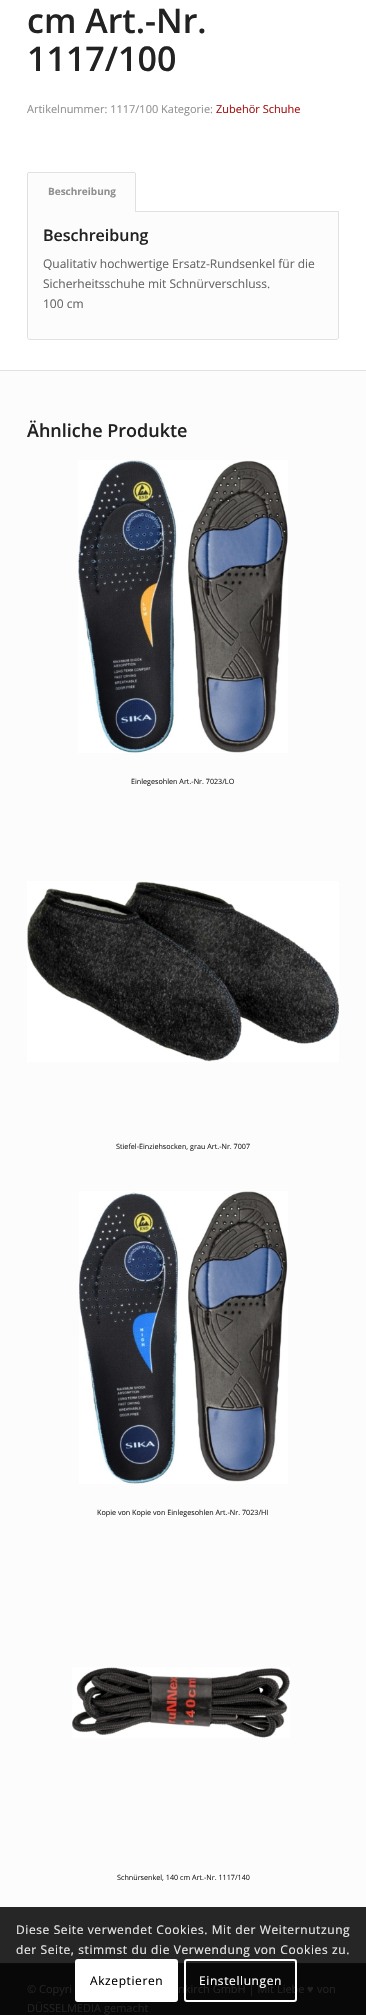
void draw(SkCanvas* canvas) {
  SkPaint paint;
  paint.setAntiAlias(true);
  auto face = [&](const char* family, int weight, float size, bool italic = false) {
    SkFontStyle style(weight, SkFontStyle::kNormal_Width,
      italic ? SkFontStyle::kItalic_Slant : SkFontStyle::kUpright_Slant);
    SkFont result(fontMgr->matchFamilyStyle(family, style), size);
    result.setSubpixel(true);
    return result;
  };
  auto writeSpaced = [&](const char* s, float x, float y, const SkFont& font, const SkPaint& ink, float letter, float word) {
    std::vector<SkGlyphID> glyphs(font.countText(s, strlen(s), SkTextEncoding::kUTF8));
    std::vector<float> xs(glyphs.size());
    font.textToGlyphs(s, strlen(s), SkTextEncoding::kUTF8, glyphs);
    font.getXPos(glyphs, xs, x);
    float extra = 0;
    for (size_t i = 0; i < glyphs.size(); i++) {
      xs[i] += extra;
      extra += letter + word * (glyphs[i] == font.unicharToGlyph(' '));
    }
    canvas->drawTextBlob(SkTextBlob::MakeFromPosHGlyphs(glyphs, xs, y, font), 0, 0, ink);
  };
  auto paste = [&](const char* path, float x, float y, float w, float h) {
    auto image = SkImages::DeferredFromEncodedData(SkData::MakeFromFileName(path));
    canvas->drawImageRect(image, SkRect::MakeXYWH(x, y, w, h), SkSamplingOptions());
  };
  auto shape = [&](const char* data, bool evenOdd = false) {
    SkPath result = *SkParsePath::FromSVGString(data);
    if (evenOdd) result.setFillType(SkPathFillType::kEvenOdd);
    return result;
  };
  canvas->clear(0xffffffff);
  paint.setColor(0xfffcfcfc);
  canvas->drawPath(shape("M27.5 211.5H338.5V337C338.5 338.5 337.5 339.5 336 339.5H30C28.5 339.5 27.5 338.5 27.5 337Z"), paint);
  paint.setStroke(true);
  paint.setStrokeWidth(1);
  paint.setColor(0xffe1e1e1);
  canvas->drawPath(shape("M27.5 211.5H338.5V337C338.5 338.5 337.5 339.5 336 339.5H30C28.5 339.5 27.5 338.5 27.5 337Z"), paint);
  paint.setStroke(false);
  {
    const struct { float x, y, w, h; SkColor color; } items[] = {
      {27, 172, 109, 40, 0xfffcfcfc},
      {28, 172, 107, 1, 0xffe1e1e1},
      {135, 173, 1, 39, 0xffe1e1e1},
      {27, 173, 1, 39, 0xffe1e1e1},
      {0, 371, 366, 1536, 0xfffcfcfc},
      {0, 1907, 366, 56, 0xff262626},
      {0, 370, 366, 1, 0xffe1e1e1},
    };
    for (auto [x, y, w, h, color] : items) {
      paint.setColor(color);
      canvas->drawRect(SkRect::MakeXYWH(x, y, w, h), paint);
    }
  }
  paste("img/1.png", 78, 460, 210, 293);
  paste("img/2.png", 27, 881, 312, 181);
  paste("img/3.png", 79, 1191, 209, 293);
  paste("img/4.png", 72, 1667, 218, 71);
  paint.setColor(0xff080808);
  canvas->drawRect(SkRect::MakeXYWH(0, 1964, 366, 51), paint);
  paint.setColor(0xff0a0a0a);
  canvas->drawRect(SkRect::MakeXYWH(0, 1963, 366, 1), paint);
  paint.setColor(0xffffffff);
  canvas->drawRoundRect(SkRect::MakeXYWH(75, 1959, 103, 43), 3, 3, paint);
  auto f0 = face("Open Sans", 600, 34);
  paint.setColor(0xff222222);
  canvas->drawString("cm Art.-Nr.", 27, 33, f0, paint);
  canvas->drawString("1117/100", 27, 71, f0, paint);
  auto f1 = face("Open Sans", 400, 11);
  paint.setColor(0xff919191);
  canvas->drawString("Artikelnummer: 1117/100 Kategorie:", 27, 113, f1, paint);
  paint.setColor(0xffa81010);
  canvas->drawString("Zubehör Schuhe", 216, 113, f1, paint);
  auto f2 = face("Open Sans", 700, 10);
  paint.setColor(0xff919191);
  canvas->drawString("Beschreibung", 48, 195, f2, paint);
  auto f3 = face("Open Sans", 600, 16);
  paint.setColor(0xff222222);
  canvas->drawString("Beschreibung", 43, 241, f3, paint);
  auto f4 = face("Open Sans", 400, 12);
  paint.setColor(0xff666666);
  {
    const struct { const char* s; float x, y; } items[] = {
      {"Qualitativ hochwertige Ersatz-Rundsenkel für die", 43, 268},
      {"Sicherheitsschuhe mit Schnürverschluss.", 43, 288},
      {"100 cm", 43, 308},
    };
    for (auto [s, x, y] : items) {
      canvas->drawString(s, x, y, f4, paint);
    }
  }
  auto f5 = face("Open Sans", 600, 18);
  paint.setColor(0xff222222);
  canvas->drawString("Ähnliche Produkte", 27, 437, f5, paint);
  auto f6 = face("Open Sans", 400, 7.2f);
  {
    const struct { const char* s; float x, y; } items[] = {
      {"Einlegesohlen Art.-Nr. 7023/LO", 131, 784},
      {"Stiefel-Einziehsocken, grau Art.-Nr. 7007", 116, 1149},
      {"Kopie von Kopie von Einlegesohlen Art.-Nr. 7023/HI", 97, 1515},
      {"Schnürsenkel, 140 cm Art.-Nr. 1117/140", 117, 1880},
    };
    for (auto [s, x, y] : items) {
      canvas->drawString(s, x, y, f6, paint);
    }
  }
  canvas->drawString("© Copyri", 27, 1993, f1, paint);
  canvas->drawString("nkirch GmbH | Mit Liebe", 178, 1993, f1, paint);
  auto f7 = face("Liberation Sans", 400, 11);
  canvas->drawString("♥", 307, 1993, f7, paint);
  {
    const struct { const char* s; float x, y; } items[] = {
      {"von", 317, 1993},
      {"DÜSSELMEDIA", 27, 2012},
      {"gemacht", 104, 2012},
    };
    for (auto [s, x, y] : items) {
      canvas->drawString(s, x, y, f1, paint);
    }
  }
  paint.setColor(0xffe9e9e9);
  writeSpaced("Diese Seite verwendet Cookies. Mit der Weiternutzung", 16, 1934, f4, paint, 0.6f, 0);
  writeSpaced("der Seite, stimmst du die Verwendung von Cookies zu.", 16, 1954, f4, paint, 0.6f, 0);
  paint.setColor(0xff000000);
  writeSpaced("Akzeptieren", 90, 1985, f4, paint, 0.6f, 0);
  paint.setStroke(true);
  paint.setStrokeWidth(2);
  paint.setColor(0xffffffff);
  canvas->drawRoundRect(SkRect::MakeXYWH(185, 1960, 111, 41), 2, 2, paint);
  paint.setStroke(false);
  writeSpaced("Einstellungen", 199, 1985, f4, paint, 0.6f, 0);
}
